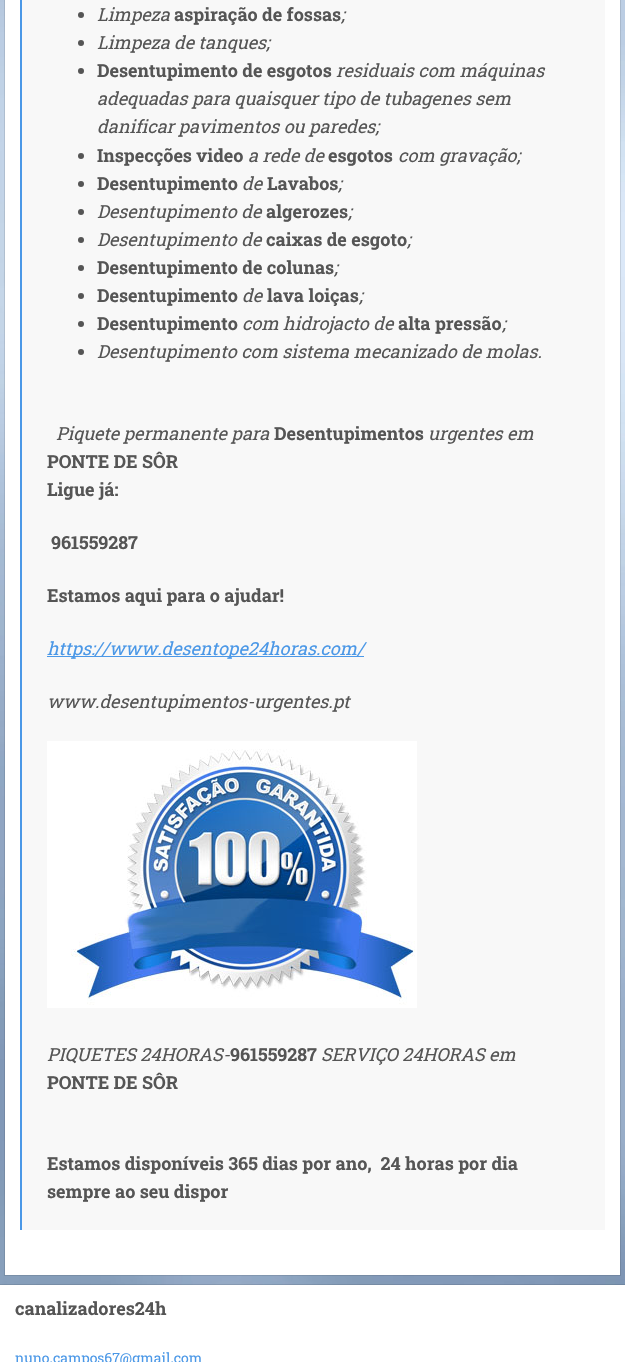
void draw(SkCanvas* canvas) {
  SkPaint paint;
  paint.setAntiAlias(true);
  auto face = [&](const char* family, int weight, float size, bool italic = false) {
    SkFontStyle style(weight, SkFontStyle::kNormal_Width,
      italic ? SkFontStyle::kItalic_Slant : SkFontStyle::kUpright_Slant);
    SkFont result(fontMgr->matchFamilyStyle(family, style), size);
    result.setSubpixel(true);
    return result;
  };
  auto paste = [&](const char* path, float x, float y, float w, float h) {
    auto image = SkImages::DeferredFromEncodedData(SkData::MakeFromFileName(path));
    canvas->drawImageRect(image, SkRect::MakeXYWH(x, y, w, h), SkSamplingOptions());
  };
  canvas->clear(0xffffffff);
  paste("img/1.png", 0, 0, 625, 1285);
  paint.setStroke(true);
  paint.setStrokeWidth(1);
  paint.setColor(0x1a000000);
  canvas->drawRect(SkRect::MakeXYWH(4.5f, -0.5f, 616, 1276), paint);
  paint.setStroke(false);
  {
    const struct { float x, y, w, h; SkColor color; } items[] = {
      {5, 0, 615, 1275, 0xffffffff},
      {22, 0, 583, 1230, 0xfff8f8f8},
      {20, 0, 2, 1230, 0xff4b98e7},
    };
    for (auto [x, y, w, h, color] : items) {
      paint.setColor(color);
      canvas->drawRect(SkRect::MakeXYWH(x, y, w, h), paint);
    }
  }
  paint.setColor(0xff555555);
  canvas->drawCircle(81, 15, 3, paint);
  canvas->drawCircle(81, 43, 3, paint);
  canvas->drawCircle(81, 71, 3, paint);
  canvas->drawCircle(81, 156, 3, paint);
  canvas->drawCircle(81, 184, 3, paint);
  canvas->drawCircle(81, 212, 3, paint);
  canvas->drawCircle(81, 240, 3, paint);
  canvas->drawCircle(81, 268, 3, paint);
  canvas->drawCircle(81, 296, 3, paint);
  canvas->drawCircle(81, 324, 3, paint);
  canvas->drawCircle(81, 352, 3, paint);
  paint.setColor(0xff4b98e7);
  canvas->drawRect(SkRect::MakeXYWH(47, 656, 317, 1), paint);
  paste("img/2.png", 47, 741, 370, 267);
  paint.setStroke(true);
  paint.setColor(0x1a000000);
  canvas->drawRect(SkRect::MakeXYWH(-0.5f, 1284.5f, 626, 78), paint);
  auto f0 = face("Roboto Slab", 400, 18, true);
  paint.setStroke(false);
  paint.setColor(0xff555555);
  canvas->drawString("Limpeza", 97, 21, f0, paint);
  auto f1 = face("Roboto Slab", 700, 18);
  canvas->drawString("aspiração de fossas", 174, 21, f1, paint);
  canvas->drawString(";", 341, 21, f0, paint);
  canvas->drawString("Limpeza de tanques;", 97, 49, f0, paint);
  canvas->drawString("Desentupimento de esgotos", 97, 77, f1, paint);
  {
    const struct { const char* s; float x, y; } items[] = {
      {"residuais com máquinas", 336, 77},
      {"adequadas para quaisquer tipo de tubagenes sem", 97, 105},
      {"danificar pavimentos ou paredes;", 97, 133},
    };
    for (auto [s, x, y] : items) {
      canvas->drawString(s, x, y, f0, paint);
    }
  }
  canvas->drawString("Inspecções video", 97, 162, f1, paint);
  canvas->drawString("a rede de", 248, 162, f0, paint);
  canvas->drawString("esgotos", 328, 162, f1, paint);
  canvas->drawString("com gravação;", 398, 162, f0, paint);
  canvas->drawString("Desentupimento", 97, 190, f1, paint);
  canvas->drawString("de", 242, 190, f0, paint);
  canvas->drawString("Lavabos", 267, 190, f1, paint);
  canvas->drawString(";", 338, 190, f0, paint);
  canvas->drawString("Desentupimento de", 97, 218, f0, paint);
  canvas->drawString("algerozes", 266, 218, f1, paint);
  canvas->drawString(";", 348, 218, f0, paint);
  canvas->drawString("Desentupimento de", 97, 246, f0, paint);
  canvas->drawString("caixas de esgoto", 266, 246, f1, paint);
  canvas->drawString(";", 407, 246, f0, paint);
  canvas->drawString("Desentupimento de colunas", 97, 274, f1, paint);
  canvas->drawString(";", 334, 274, f0, paint);
  canvas->drawString("Desentupimento", 97, 302, f1, paint);
  canvas->drawString("de", 242, 302, f0, paint);
  canvas->drawString("lava loiças", 267, 302, f1, paint);
  canvas->drawString(";", 359, 302, f0, paint);
  canvas->drawString("Desentupimento", 97, 330, f1, paint);
  canvas->drawString("com hidrojacto de", 242, 330, f0, paint);
  canvas->drawString("alta pressão", 398, 330, f1, paint);
  {
    const struct { const char* s; float x, y; } items[] = {
      {";", 502, 330},
      {"Desentupimento com sistema mecanizado de molas.", 97, 358},
      {"Piquete permanente para", 56, 440},
    };
    for (auto [s, x, y] : items) {
      canvas->drawString(s, x, y, f0, paint);
    }
  }
  canvas->drawString("Desentupimentos", 274, 440, f1, paint);
  canvas->drawString("urgentes em", 428, 440, f0, paint);
  {
    const struct { const char* s; float x, y; } items[] = {
      {"PONTE DE SÔR", 47, 468},
      {"Ligue já:", 47, 496},
      {"961559287", 51, 549},
      {"Estamos aqui para o ajudar!", 47, 602},
    };
    for (auto [s, x, y] : items) {
      canvas->drawString(s, x, y, f1, paint);
    }
  }
  paint.setColor(0xff4b98e7);
  canvas->drawString("https://www.desentope24horas.com/", 47, 655, f0, paint);
  paint.setColor(0xff555555);
  canvas->drawString("www.desentupimentos-urgentes.pt", 47, 708, f0, paint);
  canvas->drawString("PIQUETES 24HORAS-", 47, 1061, f0, paint);
  canvas->drawString("961559287", 230, 1061, f1, paint);
  canvas->drawString("SERVIÇO 24HORAS em", 321, 1061, f0, paint);
  {
    const struct { const char* s; float x, y; } items[] = {
      {"PONTE DE SÔR", 47, 1089},
      {"Estamos disponíveis 365 dias por ano,  24 horas por dia", 47, 1170},
      {"sempre ao seu dispor", 47, 1198},
      {"canalizadores24h", 15, 1315},
    };
    for (auto [s, x, y] : items) {
      canvas->drawString(s, x, y, f1, paint);
    }
  }
  auto f2 = face("Roboto Slab", 400, 14);
  paint.setColor(0xff4b98e7);
  canvas->drawString("nuno.campos67@gmail.com", 15, 1363, f2, paint);
}
